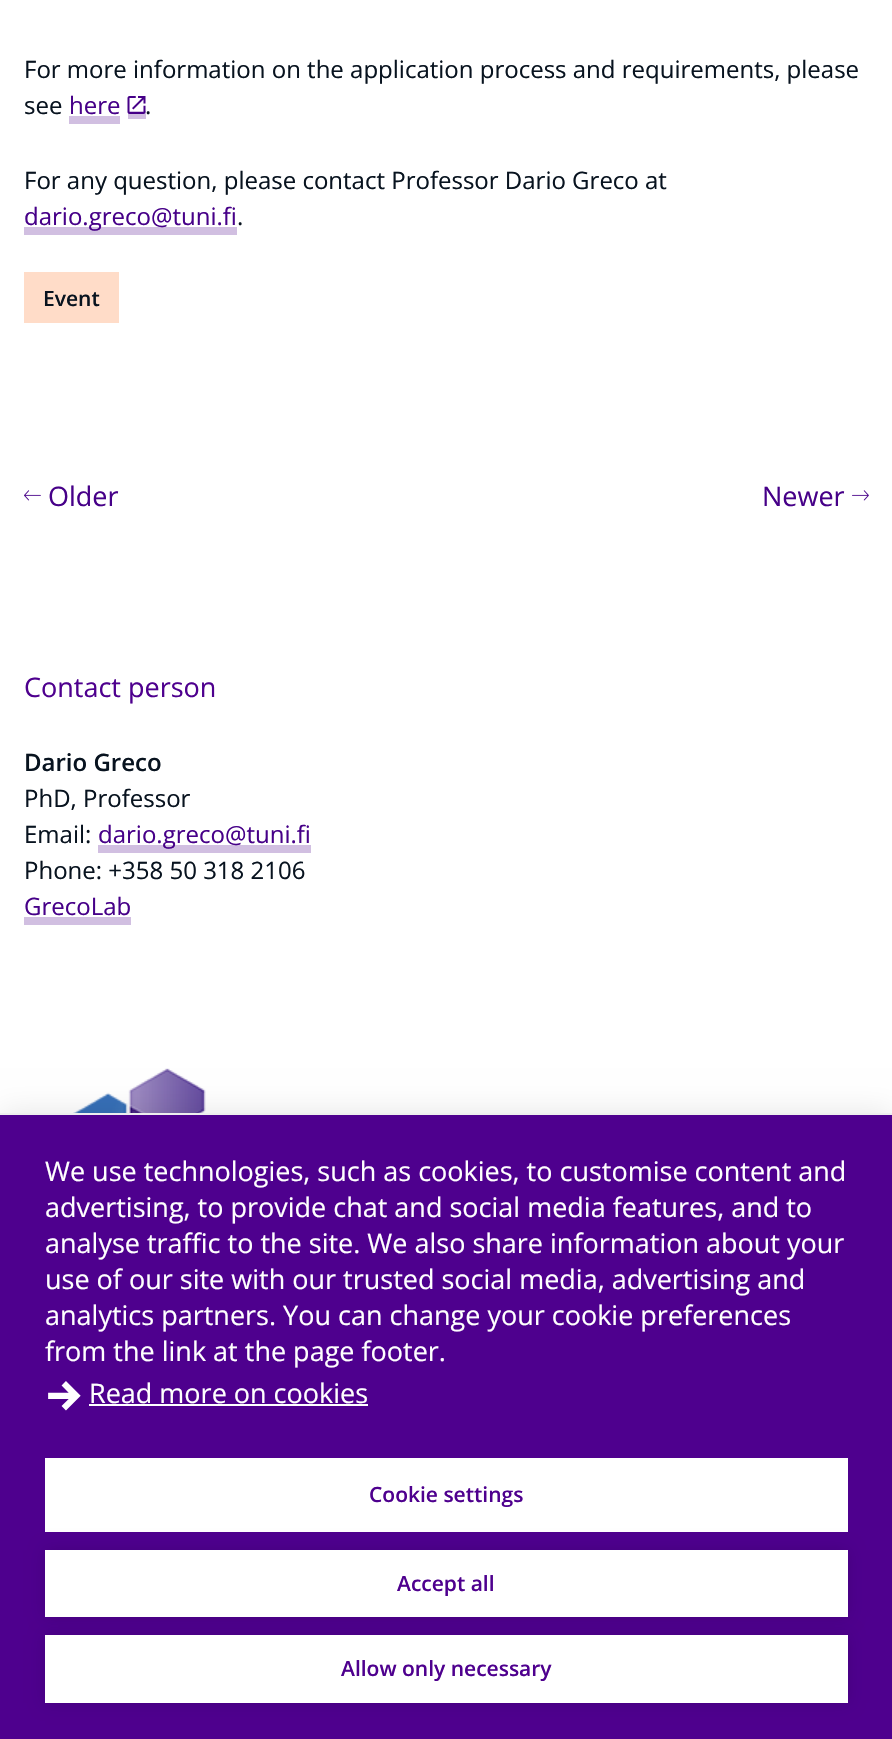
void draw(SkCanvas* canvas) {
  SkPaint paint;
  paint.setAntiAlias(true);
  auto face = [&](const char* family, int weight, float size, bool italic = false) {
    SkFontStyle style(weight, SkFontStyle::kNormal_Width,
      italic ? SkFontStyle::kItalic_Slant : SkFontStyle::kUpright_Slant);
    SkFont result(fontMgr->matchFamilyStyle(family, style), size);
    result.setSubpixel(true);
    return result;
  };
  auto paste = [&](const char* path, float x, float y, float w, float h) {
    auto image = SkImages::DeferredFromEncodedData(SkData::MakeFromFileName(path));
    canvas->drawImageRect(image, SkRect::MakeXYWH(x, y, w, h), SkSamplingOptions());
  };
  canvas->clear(0xffffffff);
  paint.setColor(0xffd1bfe1);
  canvas->drawRect(SkRect::MakeXYWH(69, 116, 51, 8), paint);
  canvas->drawRect(SkRect::MakeXYWH(128, 111, 18, 8), paint);
  paste("img/1.png", 127, 96, 19, 18);
  canvas->drawRect(SkRect::MakeXYWH(24, 227, 213, 8), paint);
  paint.setColor(0xffffdcc8);
  canvas->drawRect(SkRect::MakeXYWH(24, 272, 95, 51), paint);
  paste("img/2.png", 24, 490, 17, 11);
  paste("img/3.png", 852, 490, 17, 11);
  paint.setColor(0xffd1bfe1);
  canvas->drawRect(SkRect::MakeXYWH(98, 845, 213, 8), paint);
  canvas->drawRect(SkRect::MakeXYWH(24, 917, 107, 8), paint);
  paste("img/4.png", 73, 1068, 137, 45);
  paint.setColor(0x1a000000);
  paint.setMaskFilter(SkMaskFilter::MakeBlur(kNormal_SkBlurStyle, 15));
  canvas->drawRect(SkRect::MakeXYWH(0, 1113, 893, 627), paint);
  paint.setMaskFilter(nullptr);
  paint.setColor(0xff4e008e);
  canvas->drawRect(SkRect::MakeXYWH(0, 1115, 892, 624), paint);
  paint.setColor(0xffeeeeee);
  canvas->drawRect(SkRect::MakeXYWH(0, 1113, 892, 2), paint);
  paste("img/5.png", 48, 1381, 33, 30);
  paint.setColor(0xffffffff);
  canvas->drawRect(SkRect::MakeXYWH(89, 1404, 279, 2), paint);
  canvas->drawRect(SkRect::MakeXYWH(45, 1458, 803, 74), paint);
  paint.setColor(0x1f000000);
  paint.setMaskFilter(SkMaskFilter::MakeBlur(kNormal_SkBlurStyle, 7.5f));
  canvas->drawRect(SkRect::MakeXYWH(45, 1550, 803, 67), paint);
  paint.setMaskFilter(nullptr);
  paint.setColor(0xffffffff);
  canvas->drawRect(SkRect::MakeXYWH(45, 1550, 803, 67), paint);
  paint.setColor(0x1f000000);
  paint.setMaskFilter(SkMaskFilter::MakeBlur(kNormal_SkBlurStyle, 7.5f));
  canvas->drawRect(SkRect::MakeXYWH(45, 1635, 803, 68), paint);
  paint.setMaskFilter(nullptr);
  paint.setColor(0xffffffff);
  canvas->drawRect(SkRect::MakeXYWH(45, 1635, 803, 68), paint);
  auto f0 = face("Open Sans", 400, 24);
  paint.setColor(0xff08131f);
  canvas->drawString("For more information on the application process and requirements, please", 24, 78, f0, paint);
  canvas->drawString("see", 24, 114, f0, paint);
  paint.setColor(0xff460088);
  canvas->drawString("here", 69, 114, f0, paint);
  paint.setColor(0xff08131f);
  canvas->drawString(".", 145, 114, f0, paint);
  canvas->drawString("For any question, please contact Professor Dario Greco at", 24, 189, f0, paint);
  paint.setColor(0xff460088);
  canvas->drawString("dario.greco@tuni.fi", 24, 225, f0, paint);
  paint.setColor(0xff08131f);
  canvas->drawString(".", 237, 225, f0, paint);
  auto f1 = face("Open Sans", 600, 21);
  canvas->drawString("Event", 43, 306, f1, paint);
  auto f2 = face("Open Sans", 400, 27);
  paint.setColor(0xff460088);
  canvas->drawString("Older", 48, 506, f2, paint);
  canvas->drawString("Newer", 762, 506, f2, paint);
  paint.setColor(0xff4e008e);
  canvas->drawString("Contact person", 24, 697, f2, paint);
  auto f3 = face("Open Sans", 600, 24);
  paint.setColor(0xff08131f);
  canvas->drawString("Dario Greco", 24, 771, f3, paint);
  canvas->drawString("PhD, Professor", 24, 807, f0, paint);
  canvas->drawString("Email:", 24, 843, f0, paint);
  paint.setColor(0xff460088);
  canvas->drawString("dario.greco@tuni.fi", 98, 843, f0, paint);
  paint.setColor(0xff08131f);
  canvas->drawString("Phone: +358 50 318 2106", 24, 879, f0, paint);
  paint.setColor(0xff460088);
  canvas->drawString("GrecoLab", 24, 915, f0, paint);
  paint.setColor(0xffffffff);
  {
    const struct { const char* s; float x, y; } items[] = {
      {"We use technologies, such as cookies, to customise content and", 45, 1181},
      {"advertising, to provide chat and social media features, and to", 45, 1217},
      {"analyse traffic to the site. We also share information about your", 45, 1253},
      {"use of our site with our trusted social media, advertising and", 45, 1289},
      {"analytics partners. You can change your cookie preferences", 45, 1325},
      {"from the link at the page footer.", 45, 1361},
      {"Read more on cookies", 89, 1403},
    };
    for (auto [s, x, y] : items) {
      canvas->drawString(s, x, y, f2, paint);
    }
  }
  paint.setColor(0xff4e008e);
  {
    const struct { const char* s; float x, y; } items[] = {
      {"Cookie settings", 369, 1502},
      {"Accept all", 397, 1591},
      {"Allow only necessary", 341, 1676},
    };
    for (auto [s, x, y] : items) {
      canvas->drawString(s, x, y, f1, paint);
    }
  }
}
